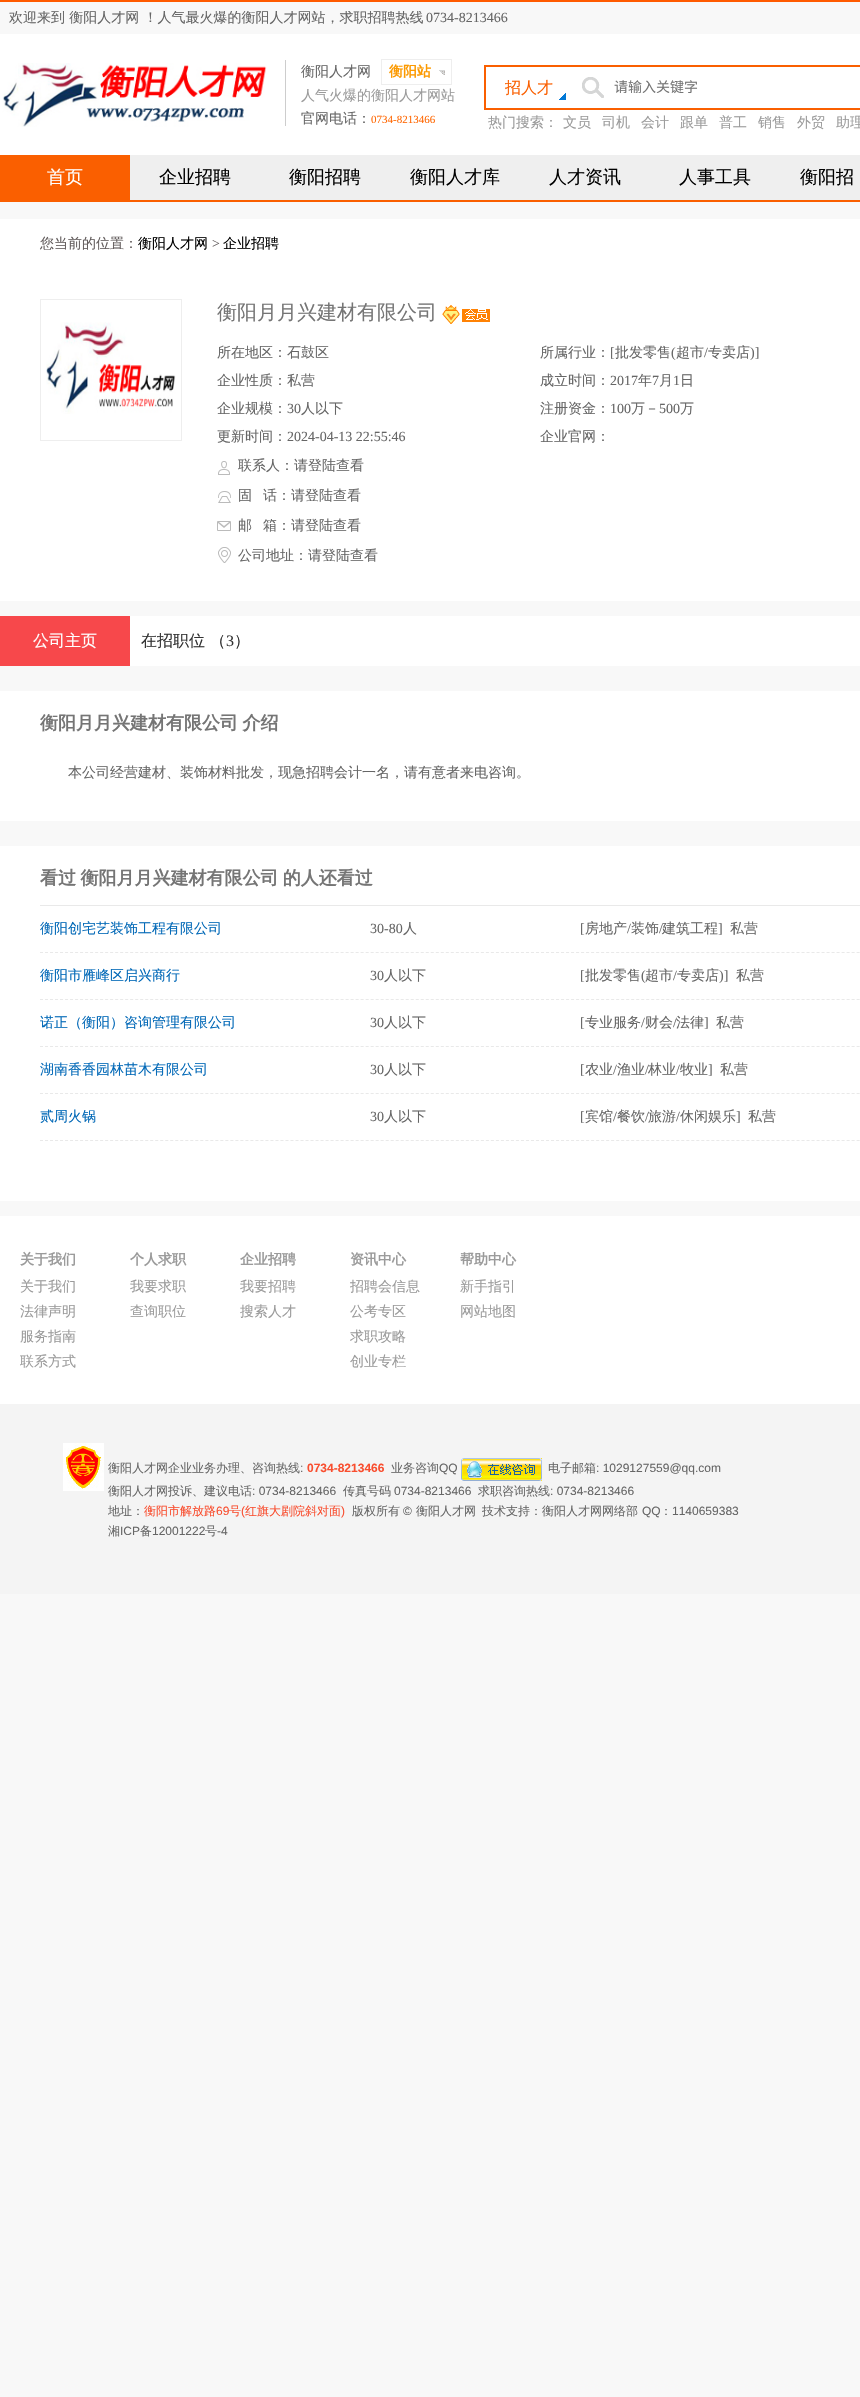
void draw(SkCanvas* canvas) {
  SkPaint paint;
  paint.setAntiAlias(true);
  auto face = [&](const char* family, int weight, float size, bool italic = false) {
    SkFontStyle style(weight, SkFontStyle::kNormal_Width,
      italic ? SkFontStyle::kItalic_Slant : SkFontStyle::kUpright_Slant);
    SkFont result(fontMgr->matchFamilyStyle(family, style), size);
    result.setSubpixel(true);
    return result;
  };
  auto writeSpaced = [&](const char* s, float x, float y, const SkFont& font, const SkPaint& ink, float letter, float word) {
    std::vector<SkGlyphID> glyphs(font.countText(s, strlen(s), SkTextEncoding::kUTF8));
    std::vector<float> xs(glyphs.size());
    font.textToGlyphs(s, strlen(s), SkTextEncoding::kUTF8, glyphs);
    font.getXPos(glyphs, xs, x);
    float extra = 0;
    for (size_t i = 0; i < glyphs.size(); i++) {
      xs[i] += extra;
      extra += letter + word * (glyphs[i] == font.unicharToGlyph(' '));
    }
    canvas->drawTextBlob(SkTextBlob::MakeFromPosHGlyphs(glyphs, xs, y, font), 0, 0, ink);
  };
  auto paste = [&](const char* path, float x, float y, float w, float h) {
    auto image = SkImages::DeferredFromEncodedData(SkData::MakeFromFileName(path));
    canvas->drawImageRect(image, SkRect::MakeXYWH(x, y, w, h), SkSamplingOptions());
  };
  auto shape = [&](const char* data, bool evenOdd = false) {
    SkPath result = *SkParsePath::FromSVGString(data);
    if (evenOdd) result.setFillType(SkPathFillType::kEvenOdd);
    return result;
  };
  canvas->clear(0xfff8f8f8);
  paint.setColor(0xffff5a00);
  canvas->drawRect(SkRect::MakeXYWH(0, 0, 860, 2), paint);
  paint.setColor(0xffffffff);
  canvas->drawRect(SkRect::MakeXYWH(0, 34, 860, 121), paint);
  paste("img/1.png", 2, 63, 265, 64);
  paint.setColor(0xffcdcdcd);
  canvas->drawRect(SkRect::MakeXYWH(285, 60, 1, 66), paint);
  paint.setStroke(true);
  paint.setStrokeWidth(1);
  paint.setColor(0xffeeeeee);
  canvas->drawRect(SkRect::MakeXYWH(381.5f, 59.5f, 70, 25), paint);
  paste("img/2.png", 439, 70, 6, 5);
  paint.setStroke(false);
  paint.setColor(0xfffa5f00);
  canvas->drawRect(SkRect::MakeXYWH(484, 65, 376, 45), paint);
  paint.setColor(0xffffffff);
  canvas->drawRect(SkRect::MakeXYWH(486, 67, 374, 41), paint);
  paste("img/3.png", 559, 93, 7, 7);
  paste("img/4.png", 582, 77, 22, 21);
  {
    const struct { float x, y, w, h; SkColor color; } items[] = {
      {130, 155, 730, 45, 0xffefefef},
      {0, 200, 860, 2, 0xfffa5f00},
      {0, 155, 130, 45, 0xfffa5f00},
      {0, 219, 860, 382, 0xffffffff},
    };
    for (auto [x, y, w, h, color] : items) {
      paint.setColor(color);
      canvas->drawRect(SkRect::MakeXYWH(x, y, w, h), paint);
    }
  }
  paint.setStroke(true);
  paint.setColor(0xffeeeeee);
  canvas->drawRect(SkRect::MakeXYWH(40.5f, 299.5f, 141, 141), paint);
  paste("img/5.png", 46, 322, 130, 92);
  paste("img/6.png", 442, 305, 48, 19);
  paste("img/7.png", 218, 461, 12, 14);
  paste("img/8.png", 218, 491, 13, 12);
  paste("img/9.png", 217, 521, 14, 10);
  paste("img/10.png", 218, 547, 13, 16);
  paint.setStroke(false);
  {
    const struct { float x, y, w, h; SkColor color; } items[] = {
      {130, 616, 730, 50, 0xffffffff},
      {0, 616, 130, 50, 0xfff7484b},
      {0, 691, 860, 130, 0xffffffff},
      {0, 846, 860, 355, 0xffffffff},
      {40, 905, 820, 1, 0xffe9e9e9},
    };
    for (auto [x, y, w, h, color] : items) {
      paint.setColor(color);
      canvas->drawRect(SkRect::MakeXYWH(x, y, w, h), paint);
    }
  }
  paint.setStroke(true);
  paint.setPathEffect(SkDashPathEffect::Make({{3, 2.01f}}, 0));
  canvas->drawPath(shape("M40 952.5H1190"), paint);
  paint.setPathEffect(nullptr);
  paint.setPathEffect(SkDashPathEffect::Make({{3, 2.01f}}, 0));
  canvas->drawPath(shape("M40 999.5H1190"), paint);
  paint.setPathEffect(nullptr);
  paint.setPathEffect(SkDashPathEffect::Make({{3, 2.01f}}, 0));
  canvas->drawPath(shape("M40 1046.5H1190"), paint);
  paint.setPathEffect(nullptr);
  paint.setPathEffect(SkDashPathEffect::Make({{3, 2.01f}}, 0));
  canvas->drawPath(shape("M40 1093.5H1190"), paint);
  paint.setPathEffect(nullptr);
  paint.setPathEffect(SkDashPathEffect::Make({{3, 2.01f}}, 0));
  canvas->drawPath(shape("M40 1140.5H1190"), paint);
  paint.setPathEffect(nullptr);
  paint.setStroke(false);
  paint.setColor(0xffffffff);
  canvas->drawRect(SkRect::MakeXYWH(0, 1216, 860, 188), paint);
  paint.setColor(0xfff4f4f4);
  canvas->drawRect(SkRect::MakeXYWH(0, 1404, 860, 190), paint);
  paste("img/11.png", 63, 1443, 41, 48);
  paste("img/12.png", 461, 1458, 81, 23);
  canvas->save();
  canvas->clipRect(SkRect::MakeXYWH(9, 11, 498, 14));
  auto f0 = face("WenQuanYi Zen Hei", 500, 14);
  paint.setColor(0xff666666);
  canvas->drawString("欢迎来到 衡阳人才网 ！人气最火爆的衡阳人才网站，求职招聘热线", 9, 22, f0, paint);
  canvas->restore();
  auto f1 = face("Liberation Serif", 400, 14);
  canvas->drawString("0734-8213466", 426, 22, f1, paint);
  canvas->drawString("衡阳人才网", 301, 76, f0, paint);
  auto f2 = face("WenQuanYi Zen Hei", 700, 14);
  paint.setColor(0xfffc9a01);
  canvas->drawString("衡阳站", 389, 76, f2, paint);
  paint.setColor(0xff9b9b9b);
  canvas->drawString("人气火爆的衡阳人才网站", 301, 100, f0, paint);
  paint.setColor(0xff666666);
  canvas->drawString("官网电话：", 301, 123, f0, paint);
  auto f3 = face("Liberation Serif", 400, 11);
  paint.setColor(0xffff6600);
  canvas->drawString("0734-8213466", 371, 123, f3, paint);
  auto f4 = face("WenQuanYi Zen Hei", 500, 16);
  paint.setColor(0xfffa5f00);
  canvas->drawString("招人才", 505, 93, f4, paint);
  auto f5 = face("Noto Sans CJK SC", 400, 14);
  paint.setColor(0xff757575);
  canvas->drawString("请输入关键字", 614, 92, f5, paint);
  paint.setColor(0xff9b9b9b);
  {
    const struct { const char* s; float x, y; } items[] = {
      {"热门搜索：", 488, 127},
      {"文员", 563, 127},
      {"司机", 602, 127},
      {"会计", 641, 127},
      {"跟单", 680, 127},
      {"普工", 719, 127},
      {"销售", 758, 127},
      {"外贸", 797, 127},
      {"助理", 836, 127},
    };
    for (auto [s, x, y] : items) {
      canvas->drawString(s, x, y, f0, paint);
    }
  }
  auto f6 = face("WenQuanYi Zen Hei", 500, 18);
  paint.setColor(0xffffffff);
  canvas->drawString("首页", 47, 183, f6, paint);
  paint.setColor(0xff000000);
  {
    const struct { const char* s; float x, y; } items[] = {
      {"企业招聘", 159, 183},
      {"衡阳招聘", 289, 183},
      {"衡阳人才库", 410, 183},
      {"人才资讯", 549, 183},
      {"人事工具", 679, 183},
      {"衡阳招", 800, 183},
    };
    for (auto [s, x, y] : items) {
      canvas->drawString(s, x, y, f6, paint);
    }
  }
  paint.setColor(0xff625c5c);
  canvas->drawString("您当前的位置：", 40, 248, f0, paint);
  paint.setColor(0xff000000);
  canvas->drawString("衡阳人才网", 138, 248, f0, paint);
  paint.setColor(0xff625c5c);
  canvas->drawString(">", 212, 248, f1, paint);
  paint.setColor(0xff000000);
  canvas->drawString("企业招聘", 223, 248, f0, paint);
  auto f7 = face("WenQuanYi Zen Hei", 500, 20);
  paint.setColor(0xff757575);
  canvas->drawString("衡阳月月兴建材有限公司", 217, 319, f7, paint);
  paint.setColor(0xff666666);
  canvas->drawString("所在地区：石鼓区", 217, 357, f0, paint);
  canvas->drawString("所属行业：", 540, 357, f0, paint);
  canvas->drawString("[", 610, 357, f1, paint);
  canvas->drawString("批发零售", 615, 357, f0, paint);
  canvas->drawString("(", 671, 357, f1, paint);
  canvas->drawString("超市", 676, 357, f0, paint);
  canvas->drawString("/", 704, 357, f1, paint);
  canvas->drawString("专卖店", 708, 357, f0, paint);
  canvas->drawString(")]", 750, 357, f1, paint);
  canvas->drawString("企业性质：私营", 217, 385, f0, paint);
  canvas->drawString("成立时间：", 540, 385, f0, paint);
  canvas->drawString("2017", 610, 385, f1, paint);
  canvas->drawString("年", 638, 385, f0, paint);
  canvas->drawString("7", 652, 385, f1, paint);
  canvas->drawString("月", 659, 385, f0, paint);
  canvas->drawString("1", 673, 385, f1, paint);
  canvas->drawString("日", 680, 385, f0, paint);
  canvas->drawString("企业规模：", 217, 413, f0, paint);
  canvas->drawString("30", 287, 413, f1, paint);
  canvas->drawString("人以下", 301, 413, f0, paint);
  canvas->drawString("注册资金：", 540, 413, f0, paint);
  canvas->drawString("100", 610, 413, f1, paint);
  canvas->drawString("万－", 631, 413, f0, paint);
  canvas->drawString("500", 659, 413, f1, paint);
  canvas->drawString("万", 680, 413, f0, paint);
  canvas->drawString("更新时间：", 217, 441, f0, paint);
  canvas->drawString("2024-04-13 22:55:46", 287, 441, f1, paint);
  {
    const struct { const char* s; float x, y; } items[] = {
      {"企业官网：", 540, 441},
      {"联系人：请登陆查看", 238, 470},
      {"固", 238, 500},
      {"话：请登陆查看", 263, 500},
      {"邮", 238, 530},
      {"箱：请登陆查看", 263, 530},
      {"公司地址：请登陆查看", 238, 560},
    };
    for (auto [s, x, y] : items) {
      canvas->drawString(s, x, y, f0, paint);
    }
  }
  paint.setColor(0xffffffff);
  canvas->drawString("公司主页", 33, 646, f4, paint);
  paint.setColor(0xff333333);
  canvas->drawString("在招职位 （", 141, 646, f4, paint);
  auto f8 = face("Liberation Serif", 400, 16);
  canvas->drawString("3", 226, 646, f8, paint);
  canvas->drawString("）", 234, 646, f4, paint);
  auto f9 = face("WenQuanYi Zen Hei", 700, 18);
  paint.setColor(0xff757575);
  writeSpaced("衡阳月月兴建材有限公司 介绍", 40, 729, f9, paint, 0, -1);
  paint.setColor(0xff666666);
  canvas->drawString("本公司经营建材、装饰材料批发，现急招聘会计一名，请有意者来电咨询。", 68, 777, f0, paint);
  paint.setColor(0xff757575);
  writeSpaced("看过 衡阳月月兴建材有限公司 的人还看过", 40, 884, f9, paint, 0, -1);
  paint.setColor(0xff0168b7);
  canvas->drawString("衡阳创宅艺装饰工程有限公司", 40, 933, f0, paint);
  paint.setColor(0xff666666);
  canvas->drawString("30-80", 370, 933, f1, paint);
  canvas->drawString("人", 403, 933, f0, paint);
  canvas->drawString("[", 580, 933, f1, paint);
  canvas->drawString("房地产", 585, 933, f0, paint);
  canvas->drawString("/", 627, 933, f1, paint);
  canvas->drawString("装饰", 631, 933, f0, paint);
  canvas->drawString("/", 659, 933, f1, paint);
  canvas->drawString("建筑工程", 662, 933, f0, paint);
  canvas->drawString("]", 718, 933, f1, paint);
  canvas->drawString("私营", 730, 933, f0, paint);
  paint.setColor(0xff0168b7);
  canvas->drawString("衡阳市雁峰区启兴商行", 40, 980, f0, paint);
  paint.setColor(0xff666666);
  canvas->drawString("30", 370, 980, f1, paint);
  canvas->drawString("人以下", 384, 980, f0, paint);
  canvas->drawString("[", 580, 980, f1, paint);
  canvas->drawString("批发零售", 585, 980, f0, paint);
  canvas->drawString("(", 641, 980, f1, paint);
  canvas->drawString("超市", 645, 980, f0, paint);
  canvas->drawString("/", 673, 980, f1, paint);
  canvas->drawString("专卖店", 677, 980, f0, paint);
  canvas->drawString(")]", 719, 980, f1, paint);
  canvas->drawString("私营", 736, 980, f0, paint);
  paint.setColor(0xff0168b7);
  canvas->drawString("诺正（衡阳）咨询管理有限公司", 40, 1027, f0, paint);
  paint.setColor(0xff666666);
  canvas->drawString("30", 370, 1027, f1, paint);
  canvas->drawString("人以下", 384, 1027, f0, paint);
  canvas->drawString("[", 580, 1027, f1, paint);
  canvas->drawString("专业服务", 585, 1027, f0, paint);
  canvas->drawString("/", 641, 1027, f1, paint);
  canvas->drawString("财会", 645, 1027, f0, paint);
  canvas->drawString("/", 673, 1027, f1, paint);
  canvas->drawString("法律", 676, 1027, f0, paint);
  canvas->drawString("]", 704, 1027, f1, paint);
  canvas->drawString("私营", 716, 1027, f0, paint);
  paint.setColor(0xff0168b7);
  canvas->drawString("湖南香香园林苗木有限公司", 40, 1074, f0, paint);
  paint.setColor(0xff666666);
  canvas->drawString("30", 370, 1074, f1, paint);
  canvas->drawString("人以下", 384, 1074, f0, paint);
  canvas->drawString("[", 580, 1074, f1, paint);
  canvas->drawString("农业", 585, 1074, f0, paint);
  canvas->drawString("/", 613, 1074, f1, paint);
  canvas->drawString("渔业", 617, 1074, f0, paint);
  canvas->drawString("/", 645, 1074, f1, paint);
  canvas->drawString("林业", 648, 1074, f0, paint);
  canvas->drawString("/", 676, 1074, f1, paint);
  canvas->drawString("牧业", 680, 1074, f0, paint);
  canvas->drawString("]", 708, 1074, f1, paint);
  canvas->drawString("私营", 720, 1074, f0, paint);
  paint.setColor(0xff0168b7);
  canvas->drawString("贰周火锅", 40, 1121, f0, paint);
  paint.setColor(0xff666666);
  canvas->drawString("30", 370, 1121, f1, paint);
  canvas->drawString("人以下", 384, 1121, f0, paint);
  canvas->drawString("[", 580, 1121, f1, paint);
  canvas->drawString("宾馆", 585, 1121, f0, paint);
  canvas->drawString("/", 613, 1121, f1, paint);
  canvas->drawString("餐饮", 617, 1121, f0, paint);
  canvas->drawString("/", 645, 1121, f1, paint);
  canvas->drawString("旅游", 648, 1121, f0, paint);
  canvas->drawString("/", 676, 1121, f1, paint);
  canvas->drawString("休闲娱乐", 680, 1121, f0, paint);
  canvas->drawString("]", 736, 1121, f1, paint);
  canvas->drawString("私营", 748, 1121, f0, paint);
  paint.setColor(0xff9b9b9b);
  canvas->drawString("关于我们", 20, 1264, f2, paint);
  {
    const struct { const char* s; float x, y; } items[] = {
      {"关于我们", 20, 1291},
      {"法律声明", 20, 1316},
      {"服务指南", 20, 1341},
      {"联系方式", 20, 1366},
    };
    for (auto [s, x, y] : items) {
      canvas->drawString(s, x, y, f0, paint);
    }
  }
  canvas->drawString("个人求职", 130, 1264, f2, paint);
  canvas->drawString("我要求职", 130, 1291, f0, paint);
  canvas->drawString("查询职位", 130, 1316, f0, paint);
  canvas->drawString("企业招聘", 240, 1264, f2, paint);
  canvas->drawString("我要招聘", 240, 1291, f0, paint);
  canvas->drawString("搜索人才", 240, 1316, f0, paint);
  canvas->drawString("资讯中心", 350, 1264, f2, paint);
  {
    const struct { const char* s; float x, y; } items[] = {
      {"招聘会信息", 350, 1291},
      {"公考专区", 350, 1316},
      {"求职攻略", 350, 1341},
      {"创业专栏", 350, 1366},
    };
    for (auto [s, x, y] : items) {
      canvas->drawString(s, x, y, f0, paint);
    }
  }
  canvas->drawString("帮助中心", 460, 1264, f2, paint);
  canvas->drawString("新手指引", 460, 1291, f0, paint);
  canvas->drawString("网站地图", 460, 1316, f0, paint);
  auto f10 = face("WenQuanYi Zen Hei", 500, 12);
  paint.setColor(0xff666666);
  canvas->drawString("衡阳人才网企业业务办理、咨询热线", 108, 1472, f10, paint);
  auto f11 = face("Liberation Sans", 400, 12);
  canvas->drawString(":", 300, 1472, f11, paint);
  auto f12 = face("Liberation Sans", 700, 12);
  paint.setColor(0xfff94e2f);
  canvas->drawString("0734-8213466", 307, 1472, f12, paint);
  paint.setColor(0xff666666);
  canvas->drawString("业务咨询", 391, 1472, f10, paint);
  canvas->drawString("QQ", 439, 1472, f11, paint);
  canvas->drawString("电子邮箱", 548, 1472, f10, paint);
  canvas->drawString(": 1029127559@qq.com", 596, 1472, f11, paint);
  canvas->drawString("衡阳人才网投诉、建议电话", 108, 1495, f10, paint);
  canvas->drawString(": 0734-8213466", 252, 1495, f11, paint);
  canvas->drawString("传真号码", 343, 1495, f10, paint);
  canvas->drawString("0734-8213466", 394, 1495, f11, paint);
  canvas->drawString("求职咨询热线", 478, 1495, f10, paint);
  canvas->drawString(": 0734-8213466", 550, 1495, f11, paint);
  canvas->drawString("地址：", 108, 1515, f10, paint);
  paint.setColor(0xfff94e2f);
  canvas->drawString("衡阳市解放路", 144, 1515, f10, paint);
  canvas->drawString("69", 216, 1515, f11, paint);
  canvas->drawString("号", 229, 1515, f10, paint);
  canvas->drawString("(", 241, 1515, f11, paint);
  canvas->drawString("红旗大剧院斜对面", 245, 1515, f10, paint);
  canvas->drawString(")", 341, 1515, f11, paint);
  paint.setColor(0xff666666);
  canvas->drawString("版权所有", 352, 1515, f10, paint);
  canvas->drawString("©", 403, 1515, f11, paint);
  canvas->drawString("衡阳人才网", 416, 1515, f10, paint);
  canvas->drawString("技术支持：衡阳人才网网络部", 482, 1515, f10, paint);
  canvas->drawString("QQ", 642, 1515, f11, paint);
  canvas->drawString("：", 660, 1515, f10, paint);
  canvas->drawString("1140659383", 672, 1515, f11, paint);
  canvas->drawString("湘", 108, 1535, f10, paint);
  canvas->drawString("ICP", 120, 1535, f11, paint);
  canvas->drawString("备", 140, 1535, f10, paint);
  canvas->drawString("12001222", 152, 1535, f11, paint);
  canvas->drawString("号", 205, 1535, f10, paint);
  canvas->drawString("-4", 217, 1535, f11, paint);
}
